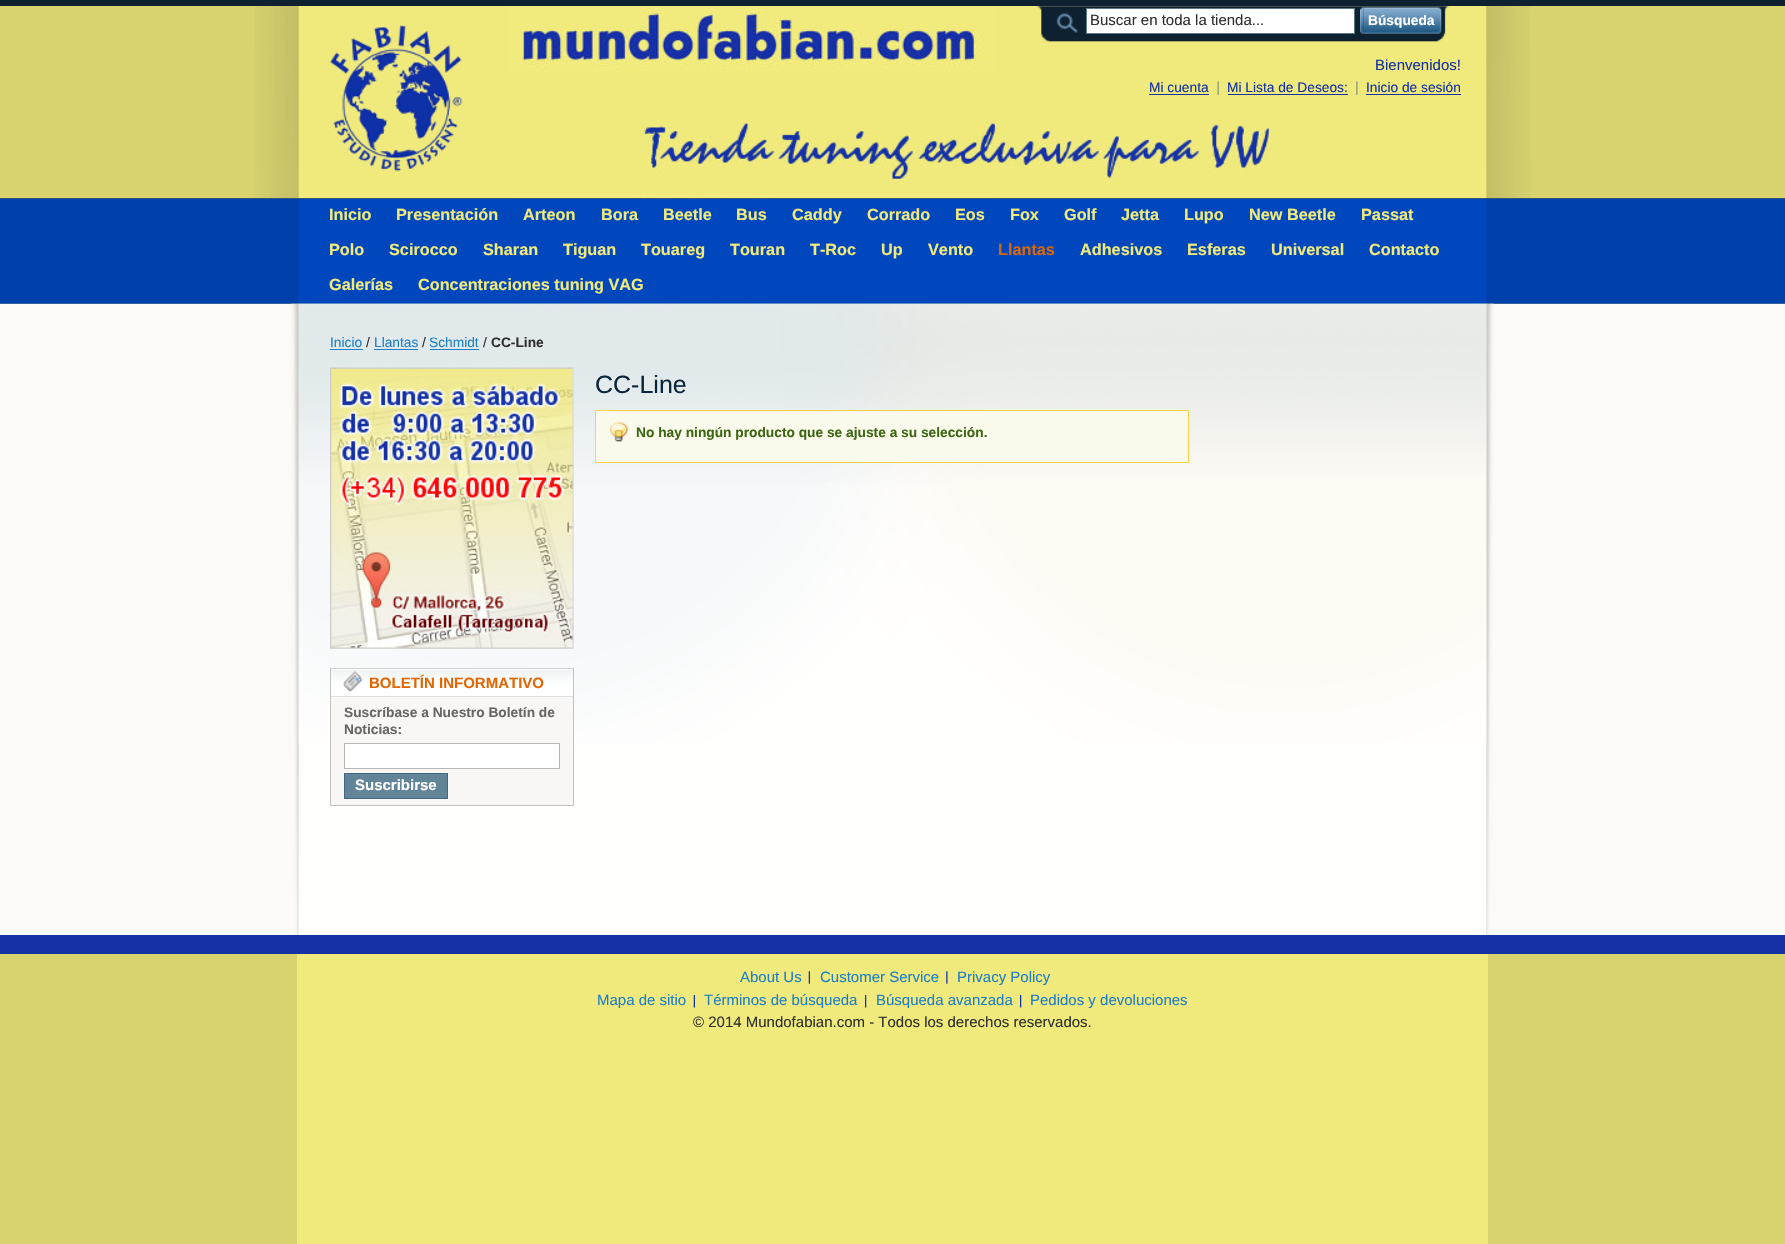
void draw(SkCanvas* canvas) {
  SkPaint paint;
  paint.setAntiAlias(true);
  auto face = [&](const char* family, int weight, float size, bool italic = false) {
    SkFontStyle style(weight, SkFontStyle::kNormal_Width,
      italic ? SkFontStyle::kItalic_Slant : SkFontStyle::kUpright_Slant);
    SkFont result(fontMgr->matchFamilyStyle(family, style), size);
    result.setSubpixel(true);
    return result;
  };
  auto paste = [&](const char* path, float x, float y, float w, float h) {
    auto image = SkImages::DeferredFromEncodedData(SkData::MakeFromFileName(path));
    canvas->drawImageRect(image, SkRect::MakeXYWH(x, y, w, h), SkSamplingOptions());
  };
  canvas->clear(0xffd8d36f);
  paint.setColor(0xfff0ea7c);
  canvas->drawRect(SkRect::MakeXYWH(297, 303, 1191, 941), paint);
  paste("img/1.png", 255, 6, 1275, 192);
  paint.setColor(0xff0d2131);
  canvas->drawRect(SkRect::MakeXYWH(0, 0, 1785, 6), paint);
  paint.setColor(0xff415966);
  canvas->drawRect(SkRect::MakeXYWH(0, 198, 1785, 1), paint);
  paste("img/2.png", 330, 25, 133, 147);
  paste("img/3.png", 1036, 6, 414, 36);
  paint.setColor(0xffffffff);
  canvas->drawRect(SkRect::MakeXYWH(1086.5f, 8.5f, 268, 25), paint);
  paint.setStroke(true);
  paint.setStrokeWidth(1);
  paint.setColor(0xff5c7989);
  canvas->drawRect(SkRect::MakeXYWH(1086.5f, 8.5f, 268, 25), paint);
  paste("img/4.png", 1360, 7, 4, 27);
  paste("img/5.png", 1363, 7, 79, 27);
  paste("img/6.png", 1217, 81, 2, 14);
  paint.setStroke(false);
  paint.setColor(0xff1431a6);
  canvas->drawRect(SkRect::MakeXYWH(1149, 94, 60, 1), paint);
  paste("img/7.png", 1356, 81, 2, 14);
  canvas->drawRect(SkRect::MakeXYWH(1228, 94, 120, 1), paint);
  canvas->drawRect(SkRect::MakeXYWH(1366, 94, 95, 1), paint);
  paste("img/8.png", 0, 198, 1785, 106);
  paint.setColor(0xfffbfaf6);
  canvas->drawRect(SkRect::MakeXYWH(0, 304, 1785, 631), paint);
  paste("img/9.png", 291, 303, 1203, 632);
  paint.setColor(0xfffffffe);
  canvas->drawRect(SkRect::MakeXYWH(299, 609, 1187, 326), paint);
  paste("img/10.png", 298, 303, 1189, 442);
  {
    const struct { float x, y, w, h; SkColor color; } items[] = {
      {330, 349, 33, 1, 0xff1e7ec8},
      {374, 349, 44, 1, 0xff1e7ec8},
      {430, 349, 49, 1, 0xff1e7ec8},
      {596, 411, 592, 51, 0xfffafaec},
    };
    for (auto [x, y, w, h, color] : items) {
      paint.setColor(color);
      canvas->drawRect(SkRect::MakeXYWH(x, y, w, h), paint);
    }
  }
  paste("img/11.png", 609, 422, 19, 20);
  paint.setStroke(true);
  paint.setColor(0xfffcd344);
  canvas->drawRect(SkRect::MakeXYWH(595.5f, 410.5f, 593, 52), paint);
  paint.setStroke(false);
  paint.setColor(0xfff8f7f5);
  canvas->drawRect(SkRect::MakeXYWH(330, 368, 244, 281), paint);
  paste("img/12.png", 330, 367, 244, 282);
  paint.setStroke(true);
  paint.setColor(0xffc4c1bc);
  canvas->drawRect(SkRect::MakeXYWH(330.5f, 668.5f, 243, 137), paint);
  paste("img/13.png", 331, 668, 242, 28);
  paint.setStroke(false);
  paint.setColor(0xffdddddd);
  canvas->drawRect(SkRect::MakeXYWH(331, 696, 242, 1), paint);
  paste("img/14.png", 343, 671, 20, 21);
  paint.setColor(0xfff8f7f5);
  canvas->drawRect(SkRect::MakeXYWH(331, 698, 242, 107), paint);
  paint.setColor(0xffffffff);
  canvas->drawRect(SkRect::MakeXYWH(344.5f, 743.5f, 215, 25), paint);
  paint.setStroke(true);
  paint.setColor(0xffb6b6b6);
  canvas->drawRect(SkRect::MakeXYWH(344.5f, 743.5f, 215, 25), paint);
  paint.setStroke(false);
  paint.setColor(0xff618499);
  canvas->drawRect(SkRect::MakeXYWH(344.5f, 773.5f, 103, 25), paint);
  paint.setStroke(true);
  paint.setColor(0xff406a83);
  canvas->drawRect(SkRect::MakeXYWH(344.5f, 773.5f, 103, 25), paint);
  paint.setStroke(false);
  paint.setColor(0xff1431a6);
  canvas->drawRect(SkRect::MakeXYWH(0, 935, 1785, 19), paint);
  paste("img/15.png", 808, 971, 2, 13);
  paste("img/16.png", 946, 971, 2, 13);
  paste("img/17.png", 693, 995, 2, 13);
  paste("img/18.png", 865, 995, 2, 13);
  paste("img/18.png", 1020, 995, 2, 13);
  auto f0 = face("Liberation Sans", 400, 15);
  paint.setColor(0xff2f2f2f);
  canvas->drawString("Buscar en toda la tienda...", 1090, 25, f0, paint);
  auto f1 = face("Liberation Sans", 700, 13.75f);
  paint.setColor(0xffffffff);
  canvas->drawString("Búsqueda", 1368, 25, f1, paint);
  paint.setColor(0xff1431a6);
  canvas->drawString("Bienvenidos!", 1375, 70, f0, paint);
  auto f2 = face("Liberation Sans", 400, 13.75f);
  {
    const struct { const char* s; float x, y; } items[] = {
      {"Mi cuenta", 1149, 92},
      {"Mi Lista de Deseos:", 1227, 92},
      {"Inicio de sesión", 1366, 92},
    };
    for (auto [s, x, y] : items) {
      canvas->drawString(s, x, y, f2, paint);
    }
  }
  auto f3 = face("Liberation Sans", 700, 16.25f);
  paint.setColor(0xfff0ea7c);
  {
    const struct { const char* s; float x, y; } items[] = {
      {"Inicio", 329, 220},
      {"Presentación", 396, 220},
      {"Arteon", 523, 220},
      {"Bora", 601, 220},
      {"Beetle", 663, 220},
      {"Bus", 736, 220},
      {"Caddy", 792, 220},
      {"Corrado", 867, 220},
      {"Eos", 955, 220},
      {"Fox", 1010, 220},
      {"Golf", 1064, 220},
      {"Jetta", 1121, 220},
      {"Lupo", 1184, 220},
      {"New Beetle", 1249, 220},
      {"Passat", 1361, 220},
      {"Polo", 329, 255},
      {"Scirocco", 389, 255},
      {"Sharan", 483, 255},
      {"Tiguan", 563, 255},
      {"Touareg", 641, 255},
      {"Touran", 730, 255},
      {"T-Roc", 810, 255},
      {"Up", 881, 255},
      {"Vento", 928, 255},
    };
    for (auto [s, x, y] : items) {
      canvas->drawString(s, x, y, f3, paint);
    }
  }
  paint.setColor(0xffd96708);
  canvas->drawString("Llantas", 998, 255, f3, paint);
  paint.setColor(0xfff0ea7c);
  {
    const struct { const char* s; float x, y; } items[] = {
      {"Adhesivos", 1080, 255},
      {"Esferas", 1187, 255},
      {"Universal", 1271, 255},
      {"Contacto", 1369, 255},
      {"Galerías", 329, 290},
      {"Concentraciones tuning VAG", 418, 290},
    };
    for (auto [s, x, y] : items) {
      canvas->drawString(s, x, y, f3, paint);
    }
  }
  paint.setColor(0xff1e7ec8);
  canvas->drawString("Inicio", 330, 347, f2, paint);
  paint.setColor(0xff2f2f2f);
  canvas->drawString("/", 366, 347, f2, paint);
  paint.setColor(0xff1e7ec8);
  canvas->drawString("Llantas", 374, 347, f2, paint);
  paint.setColor(0xff2f2f2f);
  canvas->drawString("/", 422, 347, f2, paint);
  paint.setColor(0xff1e7ec8);
  canvas->drawString("Schmidt", 429, 347, f2, paint);
  paint.setColor(0xff2f2f2f);
  canvas->drawString("/", 483, 347, f2, paint);
  canvas->drawString("CC-Line", 491, 347, f1, paint);
  auto f4 = face("Liberation Sans", 400, 25);
  paint.setColor(0xff0a263c);
  canvas->drawString("CC-Line", 595, 393, f4, paint);
  paint.setColor(0xff3d6611);
  canvas->drawString("No hay ningún producto que se ajuste a su selección.", 636, 437, f1, paint);
  auto f5 = face("Liberation Sans", 700, 15);
  paint.setColor(0xffe26703);
  canvas->drawString("BOLETÍN INFORMATIVO", 369, 688, f5, paint);
  paint.setColor(0xff666666);
  canvas->drawString("Suscríbase a Nuestro Boletín de", 344, 717, f1, paint);
  canvas->drawString("Noticias:", 344, 734, f1, paint);
  paint.setColor(0xffffffff);
  canvas->drawString("Suscribirse", 355, 790, f5, paint);
  paint.setColor(0xff1e7ec8);
  {
    const struct { const char* s; float x, y; } items[] = {
      {"About Us", 740, 982},
      {"Customer Service", 820, 982},
      {"Privacy Policy", 957, 982},
      {"Mapa de sitio", 597, 1005},
      {"Términos de búsqueda", 704, 1005},
      {"Búsqueda avanzada", 876, 1005},
      {"Pedidos y devoluciones", 1030, 1005},
    };
    for (auto [s, x, y] : items) {
      canvas->drawString(s, x, y, f0, paint);
    }
  }
  paint.setColor(0xff2f2f2f);
  canvas->drawString("© 2014 Mundofabian.com - Todos los derechos reservados.", 693, 1027, f0, paint);
}
